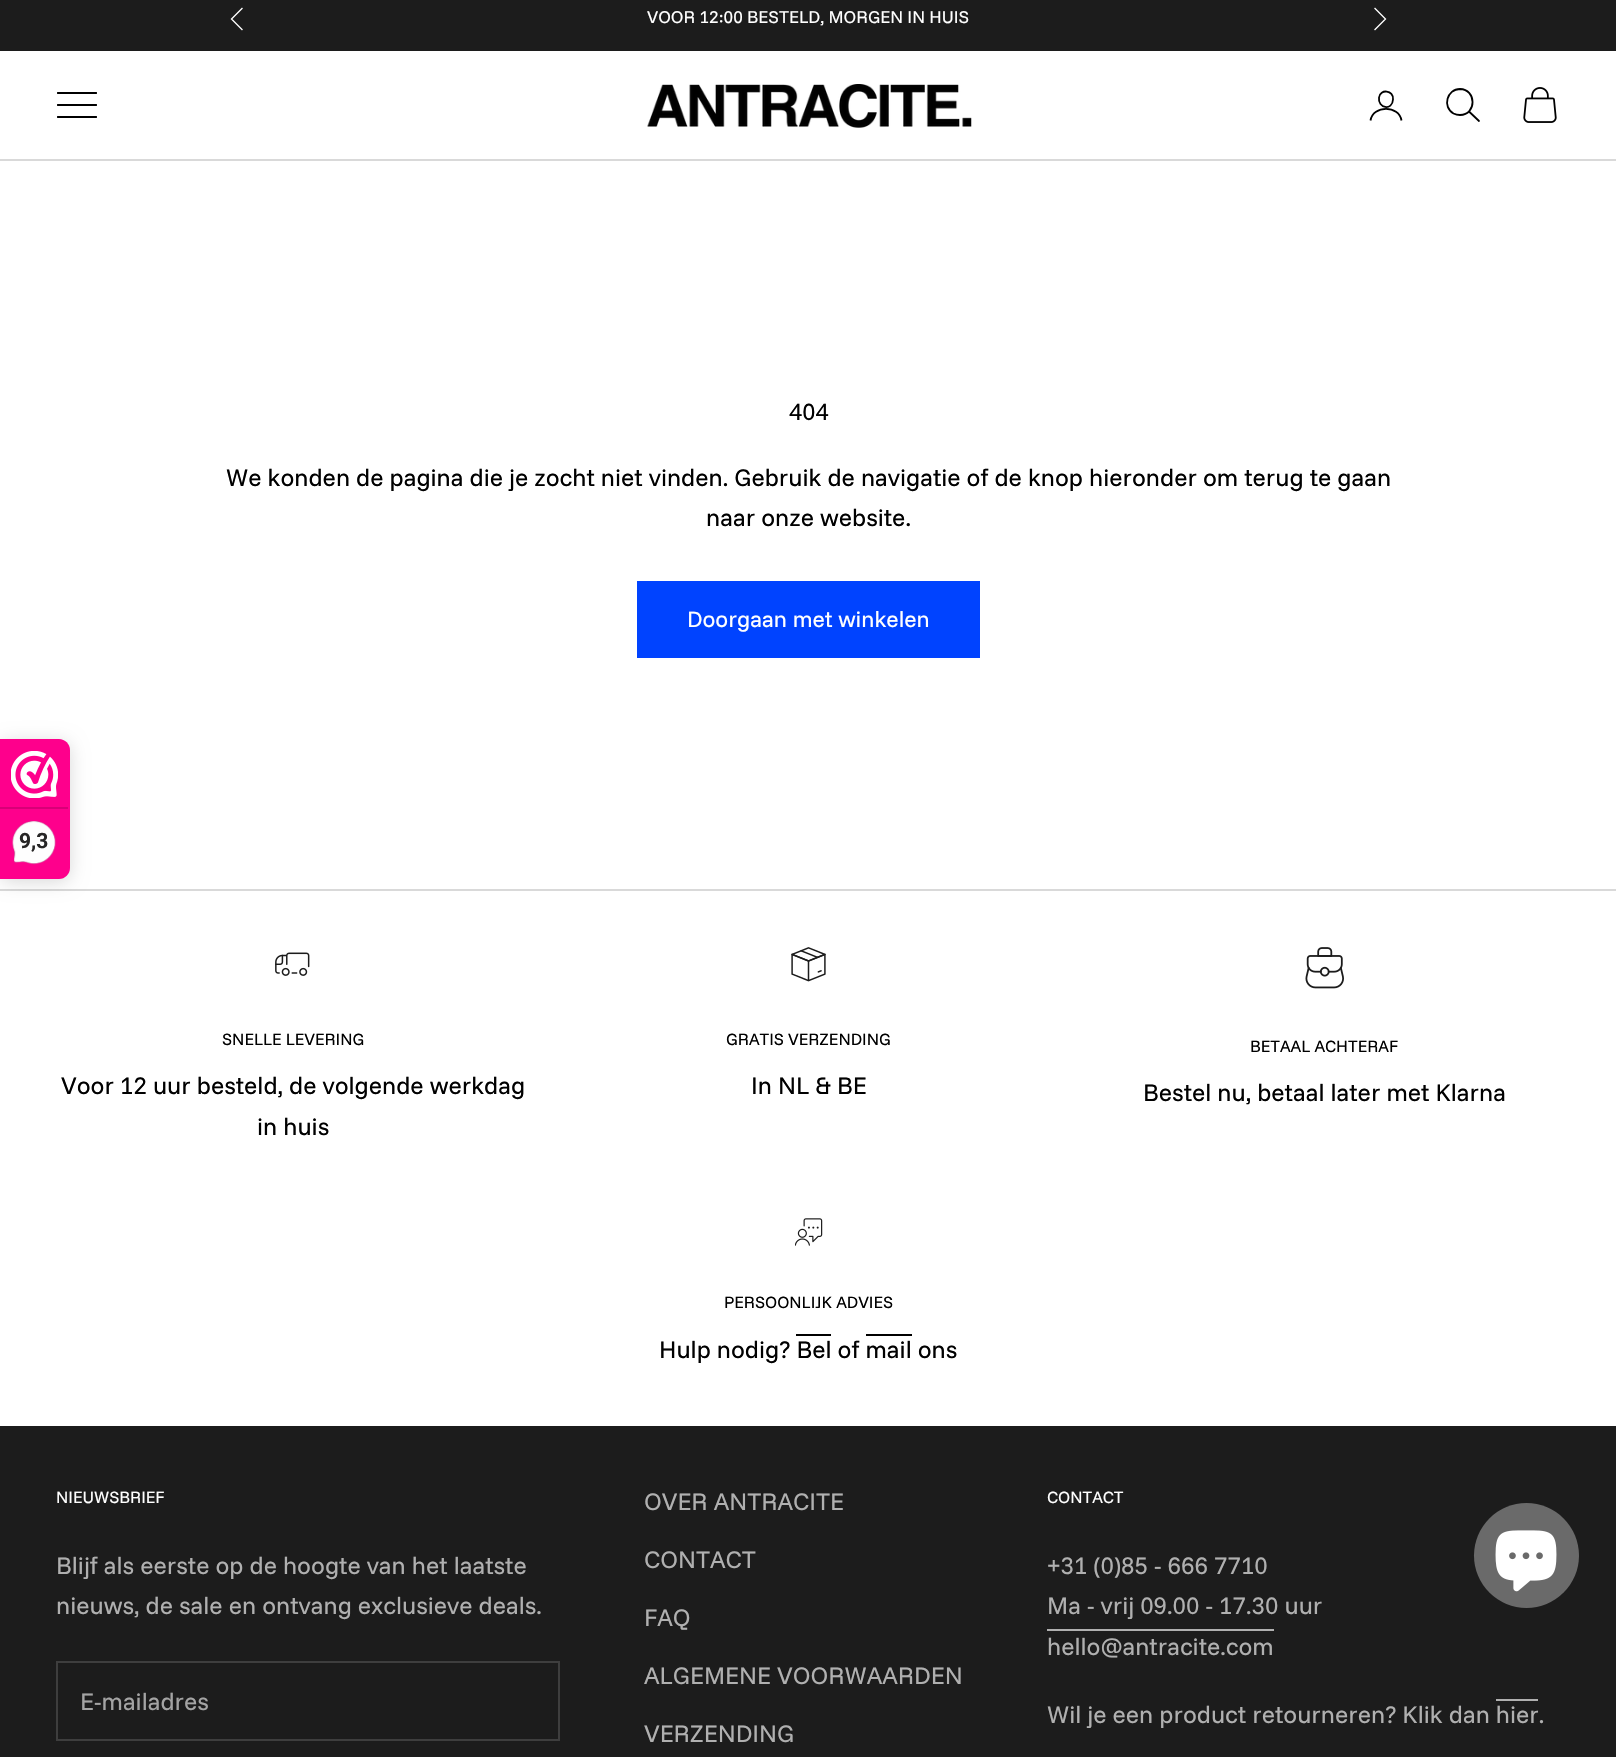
void draw(SkCanvas* canvas) {
  SkPaint paint;
  paint.setAntiAlias(true);
  auto face = [&](const char* family, int weight, float size, bool italic = false) {
    SkFontStyle style(weight, SkFontStyle::kNormal_Width,
      italic ? SkFontStyle::kItalic_Slant : SkFontStyle::kUpright_Slant);
    SkFont result(fontMgr->matchFamilyStyle(family, style), size);
    result.setSubpixel(true);
    return result;
  };
  auto paste = [&](const char* path, float x, float y, float w, float h) {
    auto image = SkImages::DeferredFromEncodedData(SkData::MakeFromFileName(path));
    canvas->drawImageRect(image, SkRect::MakeXYWH(x, y, w, h), SkSamplingOptions());
  };
  auto shape = [&](const char* data, bool evenOdd = false) {
    SkPath result = *SkParsePath::FromSVGString(data);
    if (evenOdd) result.setFillType(SkPathFillType::kEvenOdd);
    return result;
  };
  canvas->clear(0xffffffff);
  paint.setColor(0xff1c1c1c);
  canvas->drawRect(SkRect::MakeXYWH(0, 0, 1616, 51), paint);
  paint.setStroke(true);
  paint.setStrokeWidth(1.3f);
  paint.setStrokeCap(SkPaint::kSquare_Cap);
  paint.setColor(0xffffffff);
  canvas->drawPath(shape("M242 8.5L231.5 19L242 29.5"), paint);
  canvas->drawPath(shape("M1375 29.5L1385.5 19L1375 8.5"), paint);
  paint.setStroke(false);
  paint.setColor(0xffd9d9d9);
  canvas->drawRect(SkRect::MakeXYWH(0, 159, 1616, 2), paint);
  paint.setStroke(true);
  paint.setStrokeWidth(1.8f);
  paint.setColor(0xff000000);
  canvas->drawPath(shape("M58 117H96M58 105H96M58 93H96"), paint);
  paste("img/1.png", 647, 84, 325, 44);
  paint.setStrokeCap(SkPaint::kRound_Cap);
  paint.setStrokeJoin(SkPaint::kRound_Join);
  canvas->drawPath(shape("M1393 99.5C1392.5 111 1377.5 108.5 1379 97.5C1380 88.5 1394 90 1393 99.5Z"), paint);
  paint.setStrokeCap(SkPaint::kButt_Cap);
  paint.setStrokeJoin(SkPaint::kMiter_Join);
  canvas->drawPath(shape("M1370.5 120.5C1373 105 1399 105 1401.5 120.5"), paint);
  canvas->drawPath(shape("M1460 89C1447 89 1442 107 1453.5 113.5C1455.5 114.5 1458 115 1460 115C1477 114.5 1476.5 89.5 1460 89Z"), paint);
  paint.setStrokeCap(SkPaint::kRound_Cap);
  canvas->drawPath(shape("M1469.5 112L1479 121"), paint);
  paste("img/2.png", 1523, 87, 34, 36);
  paint.setStroke(false);
  paint.setColor(0xffd9d9d9);
  canvas->drawRect(SkRect::MakeXYWH(0, 889, 1616, 2), paint);
  paint.setColor(0x26000000);
  paint.setMaskFilter(SkMaskFilter::MakeBlur(kNormal_SkBlurStyle, 9));
  canvas->drawRoundRect(SkRect::MakeXYWH(0, 742, 70, 140), 11, 11, paint);
  paint.setMaskFilter(nullptr);
  paint.setColor(0xfffe008c);
  canvas->drawPath(shape("M0 739H59C65 739 70 744 70 750V868C70 874 65 879 59 879H0Z"), paint);
  paste("img/3.png", 11, 751, 47, 47);
  paint.setColor(0xffd80077);
  canvas->drawRect(SkRect::MakeXYWH(0, 807, 68, 2), paint);
  paste("img/4.png", 12, 821, 44, 44);
  paint.setColor(0xff0043ff);
  canvas->drawRect(SkRect::MakeXYWH(638, 582, 341, 75), paint);
  paint.setStroke(true);
  paint.setStrokeWidth(2);
  paint.setStrokeCap(SkPaint::kButt_Cap);
  canvas->drawRect(SkRect::MakeXYWH(638, 582, 341, 75), paint);
  paste("img/5.png", 275, 952, 35, 24);
  paste("img/6.png", 791, 947, 35, 35);
  paste("img/7.png", 1305, 947, 39, 42);
  paste("img/8.png", 795, 1218, 28, 28);
  paint.setStroke(false);
  {
    const struct { float x, y, w, h; SkColor color; } items[] = {
      {796, 1334, 35, 2, 0xff000000},
      {866, 1334, 46, 2, 0xff000000},
      {0, 1426, 1616, 331, 0xff1c1c1c},
    };
    for (auto [x, y, w, h, color] : items) {
      paint.setColor(color);
      canvas->drawRect(SkRect::MakeXYWH(x, y, w, h), paint);
    }
  }
  paint.setStroke(true);
  paint.setColor(0xff3e3e3e);
  canvas->drawRect(SkRect::MakeXYWH(57, 1662, 502, 78), paint);
  paint.setStroke(false);
  paint.setColor(0xffb0b0b0);
  canvas->drawRect(SkRect::MakeXYWH(1047, 1629, 227, 2), paint);
  canvas->drawRect(SkRect::MakeXYWH(1496, 1699, 42, 2), paint);
  paint.setColor(0xff6a6a6a);
  canvas->drawCircle(1526.5f, 1555.5f, 52.5f, paint);
  paste("img/9.png", 1495, 1530, 62, 62);
  auto f0 = face("Funnel Sans", 400, 17.5f);
  paint.setColor(0xffffffff);
  canvas->drawString("VOOR 12:00 BESTELD, MORGEN IN HUIS", 647, 23, f0, paint);
  auto f1 = face("Roboto", 700, 21);
  paint.setColor(0xff272626);
  canvas->drawString("9,3", 19, 848, f1, paint);
  auto f2 = face("Funnel Sans", 400, 24);
  paint.setColor(0xff000000);
  canvas->drawString("404", 789, 420, f2, paint);
  auto f3 = face("Funnel Sans", 400, 24.5f);
  canvas->drawString("We konden de pagina die je zocht niet vinden. Gebruik de navigatie of de knop hieronder om terug te gaan", 226, 486, f3, paint);
  canvas->drawString("naar onze website.", 706, 526, f3, paint);
  auto f4 = face("Funnel Sans", 400, 22.75f);
  paint.setColor(0xffffffff);
  canvas->drawString("Doorgaan met winkelen", 687, 627, f4, paint);
  auto f5 = face("Funnel Sans", 400, 16.75f);
  paint.setColor(0xff000000);
  canvas->drawString("SNELLE LEVERING", 222, 1045, f5, paint);
  canvas->drawString("Voor 12 uur besteld, de volgende werkdag", 61, 1094, f3, paint);
  canvas->drawString("in huis", 257, 1135, f3, paint);
  canvas->drawString("GRATIS VERZENDING", 726, 1045, f5, paint);
  canvas->drawString("In NL & BE", 751, 1094, f3, paint);
  canvas->drawString("BETAAL ACHTERAF", 1250, 1052, f5, paint);
  canvas->drawString("Bestel nu, betaal later met Klarna", 1143, 1101, f3, paint);
  canvas->drawString("PERSOONLIJK ADVIES", 724, 1308, f5, paint);
  canvas->drawString("Hulp nodig? Bel of mail ons", 659, 1358, f3, paint);
  paint.setColor(0xffffffff);
  canvas->drawString("NIEUWSBRIEF", 56, 1503, f5, paint);
  paint.setColor(0xffb0b0b0);
  canvas->drawString("Blijf als eerste op de hoogte van het laatste", 56, 1574, f3, paint);
  canvas->drawString("nieuws, de sale en ontvang exclusieve deals.", 56, 1614, f3, paint);
  paint.setColor(0xffa4a4a4);
  canvas->drawString("E-mailadres", 80, 1710, f3, paint);
  paint.setColor(0xffb0b0b0);
  {
    const struct { const char* s; float x, y; } items[] = {
      {"OVER ANTRACITE", 644, 1510},
      {"CONTACT", 644, 1568},
      {"FAQ", 644, 1626},
      {"ALGEMENE VOORWAARDEN", 644, 1684},
      {"VERZENDING", 644, 1742},
    };
    for (auto [s, x, y] : items) {
      canvas->drawString(s, x, y, f3, paint);
    }
  }
  paint.setColor(0xffffffff);
  canvas->drawString("CONTACT", 1047, 1503, f5, paint);
  paint.setColor(0xffb0b0b0);
  {
    const struct { const char* s; float x, y; } items[] = {
      {"+31 (0)85 - 666 7710", 1047, 1574},
      {"Ma - vrij 09.00 - 17.30 uur", 1047, 1614},
      {"hello@antracite.com", 1047, 1655},
      {"Wil je een product retourneren? Klik dan hier.", 1047, 1723},
    };
    for (auto [s, x, y] : items) {
      canvas->drawString(s, x, y, f3, paint);
    }
  }
}
